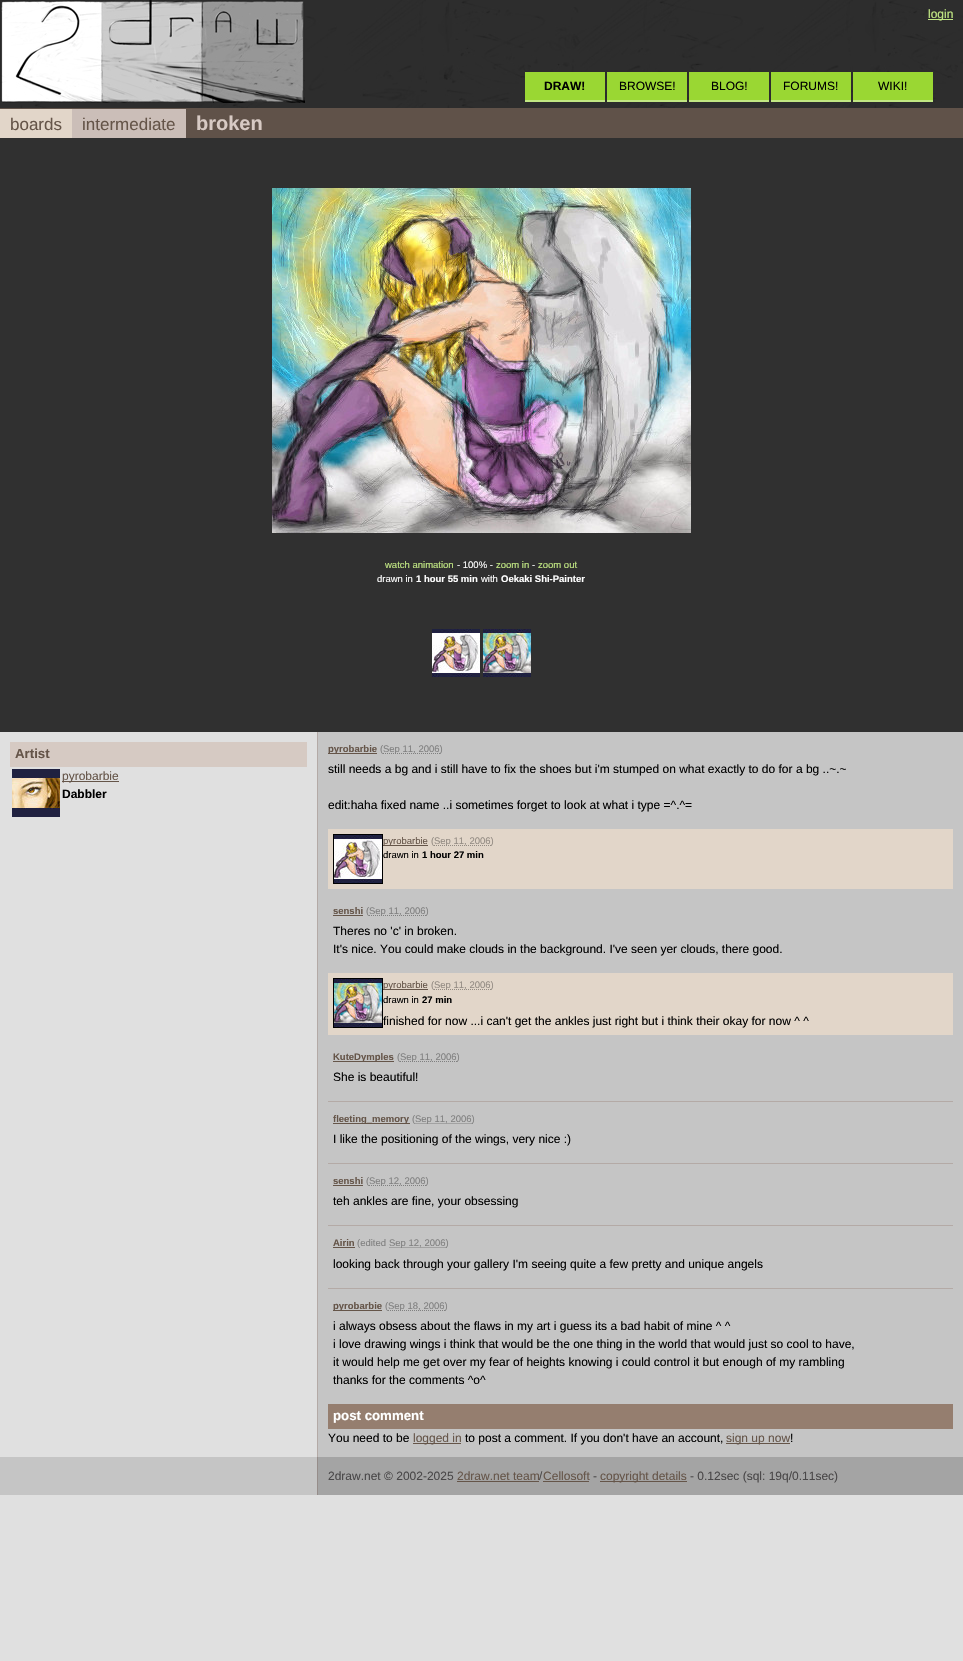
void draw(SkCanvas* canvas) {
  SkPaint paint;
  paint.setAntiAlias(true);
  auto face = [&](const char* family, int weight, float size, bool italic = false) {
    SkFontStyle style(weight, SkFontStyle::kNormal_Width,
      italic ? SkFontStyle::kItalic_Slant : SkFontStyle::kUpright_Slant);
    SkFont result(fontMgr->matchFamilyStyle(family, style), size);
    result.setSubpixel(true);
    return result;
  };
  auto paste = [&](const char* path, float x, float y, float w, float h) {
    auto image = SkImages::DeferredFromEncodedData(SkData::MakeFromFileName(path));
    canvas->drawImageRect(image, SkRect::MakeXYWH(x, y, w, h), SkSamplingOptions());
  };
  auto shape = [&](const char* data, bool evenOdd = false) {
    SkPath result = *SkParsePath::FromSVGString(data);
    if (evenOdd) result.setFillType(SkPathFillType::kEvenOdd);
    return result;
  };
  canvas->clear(0xffe0e0e0);
  paste("img/1.png", 0, 0, 963, 108);
  paste("img/2.png", 0, 0, 305, 103);
  {
    const struct { float x, y, w, h; SkColor color; } items[] = {
      {928, 19, 25, 1, 0xffc1e783},
      {525, 72, 80, 28, 0xff9ad733},
      {525, 100, 80, 2, 0xffc1e783},
      {607, 72, 80, 28, 0xff9ad733},
      {607, 100, 80, 2, 0xffc1e783},
      {689, 72, 80, 28, 0xff9ad733},
      {689, 100, 80, 2, 0xffc1e783},
      {771, 72, 80, 28, 0xff9ad733},
      {771, 100, 80, 2, 0xffc1e783},
      {853, 72, 80, 28, 0xff9ad733},
      {853, 100, 80, 2, 0xffc1e783},
      {0, 108, 963, 30, 0xff605249},
      {0, 109, 72, 29, 0xffe2d6c9},
      {72, 109, 114, 29, 0xffcbbeb8},
      {0, 138, 963, 594, 0xff303030},
    };
    for (auto [x, y, w, h, color] : items) {
      paint.setColor(color);
      canvas->drawRect(SkRect::MakeXYWH(x, y, w, h), paint);
    }
  }
  paste("img/3.png", 272, 188, 419, 345);
  paste("img/4.png", 432, 629, 48, 48);
  paste("img/5.png", 483, 629, 48, 48);
  paint.setColor(0xffb4aaa6);
  canvas->drawRect(SkRect::MakeXYWH(317, 732, 1, 725), paint);
  paint.setColor(0xffd6cac3);
  canvas->drawRect(SkRect::MakeXYWH(10, 742, 297, 25), paint);
  paste("img/6.png", 12, 769, 48, 48);
  {
    const struct { float x, y, w, h; SkColor color; } items[] = {
      {62, 781, 57, 1, 0xff655549},
      {318, 732, 645, 725, 0xffc5c5c5},
      {328, 753, 49, 1, 0xff655549},
    };
    for (auto [x, y, w, h, color] : items) {
      paint.setColor(color);
      canvas->drawRect(SkRect::MakeXYWH(x, y, w, h), paint);
    }
  }
  paint.setStroke(true);
  paint.setStrokeWidth(1);
  paint.setColor(0xff808080);
  paint.setPathEffect(SkDashPathEffect::Make({{1, 1}}, 0));
  canvas->drawPath(shape("M383 753.5H440.5"), paint);
  paint.setPathEffect(nullptr);
  paint.setStroke(false);
  paint.setColor(0xffe2d6c9);
  canvas->drawRect(SkRect::MakeXYWH(328, 829, 625, 60), paint);
  paint.setStroke(true);
  paint.setColor(0xff000000);
  canvas->drawRect(SkRect::MakeXYWH(333.5f, 834.5f, 49, 49), paint);
  paste("img/4.png", 334, 835, 48, 48);
  paint.setStroke(false);
  paint.setColor(0xff655549);
  canvas->drawRect(SkRect::MakeXYWH(383, 845, 45, 1), paint);
  paint.setStroke(true);
  paint.setColor(0xff938b83);
  paint.setPathEffect(SkDashPathEffect::Make({{1, 1}}, 0));
  canvas->drawPath(shape("M434 845.5H491"), paint);
  paint.setPathEffect(nullptr);
  paint.setStroke(false);
  paint.setColor(0xff655549);
  canvas->drawRect(SkRect::MakeXYWH(333, 915, 30, 1), paint);
  paint.setStroke(true);
  paint.setColor(0xff808080);
  paint.setPathEffect(SkDashPathEffect::Make({{1, 1}}, 0));
  canvas->drawPath(shape("M369 915.5H426"), paint);
  paint.setPathEffect(nullptr);
  paint.setStroke(false);
  paint.setColor(0xffe2d6c9);
  canvas->drawRect(SkRect::MakeXYWH(328, 973, 625, 62), paint);
  paint.setStroke(true);
  paint.setColor(0xff000000);
  canvas->drawRect(SkRect::MakeXYWH(333.5f, 978.5f, 49, 49), paint);
  paste("img/5.png", 334, 979, 48, 48);
  paint.setStroke(false);
  paint.setColor(0xff655549);
  canvas->drawRect(SkRect::MakeXYWH(383, 989, 45, 1), paint);
  paint.setStroke(true);
  paint.setColor(0xff938b83);
  paint.setPathEffect(SkDashPathEffect::Make({{1, 1}}, 0));
  canvas->drawPath(shape("M434 989.5H491"), paint);
  paint.setPathEffect(nullptr);
  paint.setStroke(false);
  paint.setColor(0xff655549);
  canvas->drawRect(SkRect::MakeXYWH(333, 1061, 61, 1), paint);
  paint.setStroke(true);
  paint.setColor(0xff808080);
  paint.setPathEffect(SkDashPathEffect::Make({{1, 1}}, 0));
  canvas->drawPath(shape("M400 1061.5H457"), paint);
  paint.setPathEffect(nullptr);
  paint.setStroke(false);
  paint.setColor(0xffb4aaa6);
  canvas->drawRect(SkRect::MakeXYWH(328, 1101, 625, 1), paint);
  paint.setColor(0xff655549);
  canvas->drawRect(SkRect::MakeXYWH(333, 1123, 77, 1), paint);
  paint.setStroke(true);
  paint.setColor(0xff808080);
  paint.setPathEffect(SkDashPathEffect::Make({{1, 1}}, 0));
  canvas->drawPath(shape("M415.5 1123.5H472.5"), paint);
  paint.setPathEffect(nullptr);
  paint.setStroke(false);
  paint.setColor(0xffb4aaa6);
  canvas->drawRect(SkRect::MakeXYWH(328, 1163, 625, 1), paint);
  paint.setColor(0xff655549);
  canvas->drawRect(SkRect::MakeXYWH(333, 1185, 30, 1), paint);
  paint.setStroke(true);
  paint.setColor(0xff808080);
  paint.setPathEffect(SkDashPathEffect::Make({{1, 1}}, 0));
  canvas->drawPath(shape("M369 1185.5H426"), paint);
  paint.setPathEffect(nullptr);
  paint.setStroke(false);
  paint.setColor(0xffb4aaa6);
  canvas->drawRect(SkRect::MakeXYWH(328, 1225, 625, 1), paint);
  paint.setColor(0xff655549);
  canvas->drawRect(SkRect::MakeXYWH(333, 1247, 22, 1), paint);
  paint.setStroke(true);
  paint.setColor(0xff808080);
  paint.setPathEffect(SkDashPathEffect::Make({{1, 1}}, 0));
  canvas->drawPath(shape("M389.5 1247.5H446.5"), paint);
  paint.setPathEffect(nullptr);
  paint.setStroke(false);
  paint.setColor(0xffb4aaa6);
  canvas->drawRect(SkRect::MakeXYWH(328, 1288, 625, 1), paint);
  paint.setColor(0xff655549);
  canvas->drawRect(SkRect::MakeXYWH(333, 1310, 49, 1), paint);
  paint.setStroke(true);
  paint.setColor(0xff808080);
  paint.setPathEffect(SkDashPathEffect::Make({{1, 1}}, 0));
  canvas->drawPath(shape("M388 1310.5H445.5"), paint);
  paint.setPathEffect(nullptr);
  paint.setStroke(false);
  {
    const struct { float x, y, w, h; SkColor color; } items[] = {
      {328, 1404, 625, 25, 0xff957e6f},
      {413, 1443, 48, 1, 0xff655549},
      {726, 1443, 64, 1, 0xff655549},
      {0, 1457, 317, 38, 0xffc5c5c5},
      {317, 1457, 1, 38, 0xff968d8a},
      {318, 1457, 645, 38, 0xffa4a4a4},
      {457, 1481, 82, 1, 0xff655549},
      {600, 1481, 87, 1, 0xff655549},
      {543, 1481, 46, 1, 0xff655549},
    };
    for (auto [x, y, w, h, color] : items) {
      paint.setColor(color);
      canvas->drawRect(SkRect::MakeXYWH(x, y, w, h), paint);
    }
  }
  auto f0 = face("Liberation Sans", 400, 12);
  paint.setColor(0xffc1e783);
  canvas->drawString("login", 928, 18, f0, paint);
  auto f1 = face("Liberation Sans", 700, 12);
  paint.setColor(0xff000000);
  canvas->drawString("DRAW!", 544, 90, f1, paint);
  {
    const struct { const char* s; float x, y; } items[] = {
      {"BROWSE!", 619, 90},
      {"BLOG!", 711, 90},
      {"FORUMS!", 783, 90},
      {"WIKI!", 878, 90},
    };
    for (auto [s, x, y] : items) {
      canvas->drawString(s, x, y, f0, paint);
    }
  }
  auto f2 = face("Liberation Sans", 400, 17);
  paint.setColor(0xff655549);
  canvas->drawString("boards", 10, 130, f2, paint);
  canvas->drawString("intermediate", 82, 130, f2, paint);
  auto f3 = face("Liberation Sans", 700, 20);
  paint.setColor(0xffd7cac4);
  canvas->drawString("broken", 196, 130, f3, paint);
  auto f4 = face("Liberation Sans", 400, 9.5f);
  paint.setColor(0xffc1e783);
  canvas->drawString("watch animation", 385, 568, f4, paint);
  paint.setColor(0xffffffff);
  canvas->drawString("- 100% -", 457, 568, f4, paint);
  paint.setColor(0xffc1e783);
  canvas->drawString("zoom in", 496, 568, f4, paint);
  paint.setColor(0xffffffff);
  canvas->drawString("-", 532, 568, f4, paint);
  paint.setColor(0xffc1e783);
  canvas->drawString("zoom out", 538, 568, f4, paint);
  paint.setColor(0xffffffff);
  canvas->drawString("drawn in", 377, 582, f4, paint);
  auto f5 = face("Liberation Sans", 700, 9.5f);
  canvas->drawString("1 hour 55 min", 416, 582, f5, paint);
  canvas->drawString("with", 481, 582, f4, paint);
  canvas->drawString("Oekaki Shi-Painter", 501, 582, f5, paint);
  auto f6 = face("Liberation Sans", 700, 13.25f);
  paint.setColor(0xff655549);
  canvas->drawString("Artist", 15, 758, f6, paint);
  canvas->drawString("pyrobarbie", 62, 780, f0, paint);
  paint.setColor(0xff000000);
  canvas->drawString("Dabbler", 62, 798, f1, paint);
  paint.setColor(0xff655549);
  canvas->drawString("pyrobarbie", 328, 752, f5, paint);
  paint.setColor(0xff808080);
  canvas->drawString("(", 380, 752, f4, paint);
  canvas->drawString("Sep 11, 2006)", 383, 752, f4, paint);
  paint.setColor(0xff000000);
  canvas->drawString("still needs a bg and i still have to fix the shoes but i'm stumped on what exactly to do for a bg ..~.~", 328, 773, f0, paint);
  canvas->drawString("edit:haha fixed name ..i sometimes forget to look at what i type =^.^=", 328, 809, f0, paint);
  paint.setColor(0xff655549);
  canvas->drawString("pyrobarbie", 383, 844, f4, paint);
  paint.setColor(0xff938b83);
  canvas->drawString("(", 431, 844, f4, paint);
  canvas->drawString("Sep 11, 2006)", 434, 844, f4, paint);
  paint.setColor(0xff000000);
  canvas->drawString("drawn in", 383, 858, f4, paint);
  canvas->drawString("1 hour 27 min", 422, 858, f5, paint);
  paint.setColor(0xff655549);
  canvas->drawString("senshi", 333, 914, f5, paint);
  paint.setColor(0xff808080);
  canvas->drawString("(", 366, 914, f4, paint);
  canvas->drawString("Sep 11, 2006)", 369, 914, f4, paint);
  paint.setColor(0xff000000);
  canvas->drawString("Theres no 'c' in broken.", 333, 935, f0, paint);
  canvas->drawString("It's nice. You could make clouds in the background. I've seen yer clouds, there good.", 333, 953, f0, paint);
  paint.setColor(0xff655549);
  canvas->drawString("pyrobarbie", 383, 988, f4, paint);
  paint.setColor(0xff938b83);
  canvas->drawString("(", 431, 988, f4, paint);
  canvas->drawString("Sep 11, 2006)", 434, 988, f4, paint);
  paint.setColor(0xff000000);
  canvas->drawString("drawn in", 383, 1003, f4, paint);
  canvas->drawString("27 min", 422, 1003, f5, paint);
  canvas->drawString("finished for now ...i can't get the ankles just right but i think their okay for now ^ ^", 383, 1025, f0, paint);
  paint.setColor(0xff655549);
  canvas->drawString("KuteDymples", 333, 1060, f5, paint);
  paint.setColor(0xff808080);
  canvas->drawString("(", 397, 1060, f4, paint);
  canvas->drawString("Sep 11, 2006)", 400, 1060, f4, paint);
  paint.setColor(0xff000000);
  canvas->drawString("She is beautiful!", 333, 1081, f0, paint);
  paint.setColor(0xff655549);
  canvas->drawString("fleeting_memory", 333, 1122, f5, paint);
  paint.setColor(0xff808080);
  canvas->drawString("(", 412, 1122, f4, paint);
  canvas->drawString("Sep 11, 2006)", 415, 1122, f4, paint);
  paint.setColor(0xff000000);
  canvas->drawString("I like the positioning of the wings, very nice :)", 333, 1143, f0, paint);
  paint.setColor(0xff655549);
  canvas->drawString("senshi", 333, 1184, f5, paint);
  paint.setColor(0xff808080);
  canvas->drawString("(", 366, 1184, f4, paint);
  canvas->drawString("Sep 12, 2006)", 369, 1184, f4, paint);
  paint.setColor(0xff000000);
  canvas->drawString("teh ankles are fine, your obsessing", 333, 1205, f0, paint);
  paint.setColor(0xff655549);
  canvas->drawString("Airin", 333, 1246, f5, paint);
  paint.setColor(0xff808080);
  canvas->drawString("(edited", 357, 1246, f4, paint);
  canvas->drawString("Sep 12, 2006)", 389, 1246, f4, paint);
  paint.setColor(0xff000000);
  canvas->drawString("looking back through your gallery I'm seeing quite a few pretty and unique angels", 333, 1268, f0, paint);
  paint.setColor(0xff655549);
  canvas->drawString("pyrobarbie", 333, 1309, f5, paint);
  paint.setColor(0xff808080);
  canvas->drawString("(", 385, 1309, f4, paint);
  canvas->drawString("Sep 18, 2006)", 388, 1309, f4, paint);
  paint.setColor(0xff000000);
  {
    const struct { const char* s; float x, y; } items[] = {
      {"i always obsess about the flaws in my art i guess its a bad habit of mine ^ ^", 333, 1330},
      {"i love drawing wings i think that would be the one thing in the world that would just so cool to have,", 333, 1348},
      {"it would help me get over my fear of heights knowing i could control it but enough of my rambling", 333, 1366},
      {"thanks for the comments ^o^", 333, 1384},
    };
    for (auto [s, x, y] : items) {
      canvas->drawString(s, x, y, f0, paint);
    }
  }
  paint.setColor(0xffffffff);
  canvas->drawString("post comment", 333, 1420, f6, paint);
  paint.setColor(0xff000000);
  canvas->drawString("You need to be", 328, 1442, f0, paint);
  paint.setColor(0xff655549);
  canvas->drawString("logged in", 413, 1442, f0, paint);
  paint.setColor(0xff000000);
  canvas->drawString("to post a comment. If you don't have an account,", 465, 1442, f0, paint);
  paint.setColor(0xff655549);
  canvas->drawString("sign up now", 726, 1442, f0, paint);
  paint.setColor(0xff000000);
  canvas->drawString("!", 790, 1442, f0, paint);
  paint.setColor(0xff494748);
  canvas->drawString("2draw.net © 2002-2025", 328, 1480, f0, paint);
  paint.setColor(0xff655549);
  canvas->drawString("2draw.net team Cellosoft", 457, 1480, f0, paint);
  paint.setColor(0xff494748);
  canvas->drawString("/", 539, 1480, f0, paint);
  canvas->drawString("-", 593, 1480, f0, paint);
  paint.setColor(0xff655549);
  canvas->drawString("copyright details", 600, 1480, f0, paint);
  paint.setColor(0xff494748);
  canvas->drawString("- 0.12sec (sql: 19q/0.11sec)", 690, 1480, f0, paint);
}
